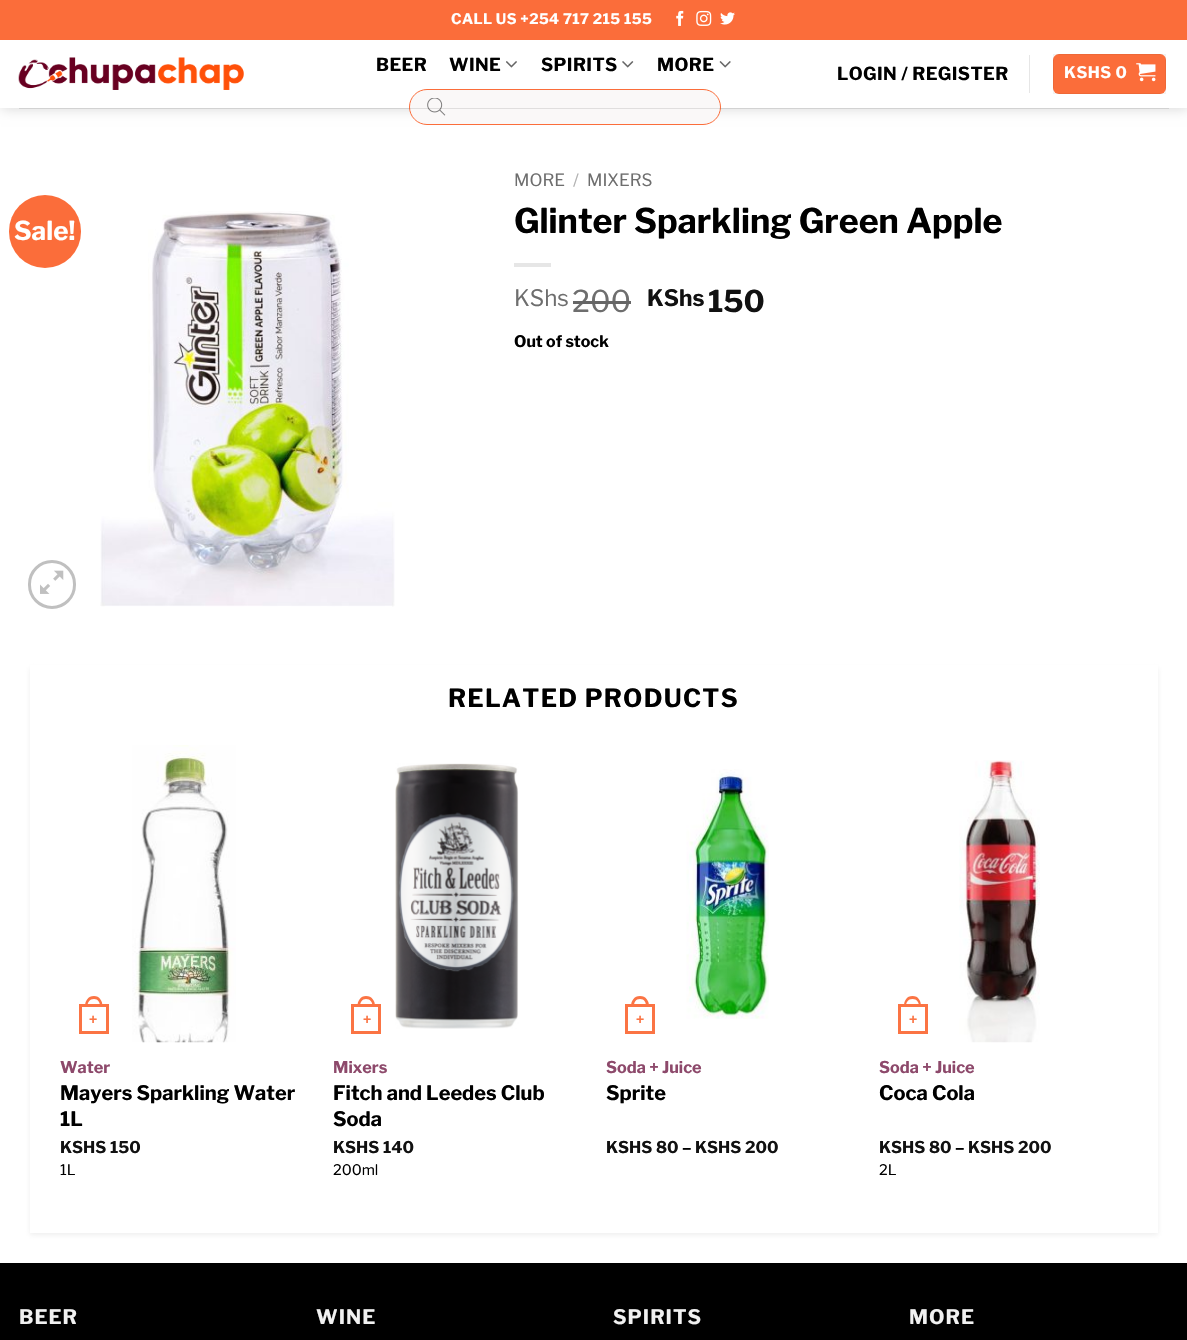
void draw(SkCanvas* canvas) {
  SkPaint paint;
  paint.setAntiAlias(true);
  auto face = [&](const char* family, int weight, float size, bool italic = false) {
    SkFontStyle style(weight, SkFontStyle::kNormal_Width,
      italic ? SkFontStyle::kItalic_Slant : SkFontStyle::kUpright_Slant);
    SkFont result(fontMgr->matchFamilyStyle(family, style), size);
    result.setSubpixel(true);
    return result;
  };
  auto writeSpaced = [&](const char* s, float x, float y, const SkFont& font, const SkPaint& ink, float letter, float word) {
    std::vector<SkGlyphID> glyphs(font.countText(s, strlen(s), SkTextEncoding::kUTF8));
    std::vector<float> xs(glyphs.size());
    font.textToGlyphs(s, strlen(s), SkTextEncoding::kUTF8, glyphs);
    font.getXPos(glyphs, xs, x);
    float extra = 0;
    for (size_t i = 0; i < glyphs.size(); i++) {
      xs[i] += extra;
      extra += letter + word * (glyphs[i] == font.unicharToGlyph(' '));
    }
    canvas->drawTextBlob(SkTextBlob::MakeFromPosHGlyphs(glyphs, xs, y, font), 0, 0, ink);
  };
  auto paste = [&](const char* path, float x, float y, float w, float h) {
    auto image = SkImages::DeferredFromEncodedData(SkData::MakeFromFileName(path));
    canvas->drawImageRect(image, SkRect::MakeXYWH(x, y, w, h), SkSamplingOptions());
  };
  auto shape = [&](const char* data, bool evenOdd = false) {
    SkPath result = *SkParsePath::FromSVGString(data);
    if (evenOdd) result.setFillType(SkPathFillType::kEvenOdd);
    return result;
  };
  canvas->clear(0xffffffff);
  canvas->save();
  canvas->clipPath(shape("M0 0H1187V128H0ZM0 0H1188V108H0Z", true), true);
  paint.setColor(0x26000000);
  paint.setMaskFilter(SkMaskFilter::MakeBlur(kNormal_SkBlurStyle, 6));
  canvas->drawRect(SkRect::MakeXYWH(1, 1, 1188, 108), paint);
  paint.setMaskFilter(nullptr);
  canvas->restore();
  paint.setColor(0xfffb6d3a);
  canvas->drawRect(SkRect::MakeXYWH(0, 0, 1187, 40), paint);
  paste("img/1.png", 676, 10, 8, 16);
  paste("img/2.png", 696, 10, 16, 16);
  paste("img/3.png", 720, 12, 15, 13);
  paste("img/4.png", 18, 57, 226, 33);
  paste("img/5.png", 506, 61, 11, 7);
  paste("img/6.png", 622, 61, 12, 7);
  paste("img/7.png", 719, 61, 12, 7);
  paint.setColor(0xe6ffffff);
  canvas->drawRect(SkRect::MakeXYWH(0, 107, 1187, 1), paint);
  paint.setColor(0xfffaf8f8);
  canvas->drawRoundRect(SkRect::MakeXYWH(409.5f, 89.5f, 311, 35), 17.5f, 17.5f, paint);
  paint.setStroke(true);
  paint.setStrokeWidth(1);
  paint.setColor(0xfffb6d3a);
  canvas->drawRoundRect(SkRect::MakeXYWH(409.5f, 89.5f, 311, 35), 17.5f, 17.5f, paint);
  paste("img/8.png", 427, 98, 19, 18);
  paint.setStroke(false);
  paint.setColor(0xffe6e6e6);
  canvas->drawRect(SkRect::MakeXYWH(1029, 55, 1, 38), paint);
  paint.setColor(0xfffb6d3a);
  canvas->drawRoundRect(SkRect::MakeXYWH(1053, 54, 113, 40), 6, 6, paint);
  paint.setStroke(true);
  paint.setColor(0x0d000000);
  canvas->drawRect(SkRect::MakeXYWH(1053.5f, 54.5f, 112, 39), paint);
  paste("img/9.png", 1136, 63, 20, 19);
  paint.setStroke(false);
  paint.setColor(0x1a000000);
  canvas->drawRect(SkRect::MakeXYWH(19, 108, 1150, 1), paint);
  paint.setColor(0xfffb6d3a);
  canvas->drawRoundRect(SkRect::MakeXYWH(9, 195, 72, 73), 36, 36, paint);
  paste("img/10.png", 100, 211, 295, 396);
  paint.setStroke(true);
  paint.setStrokeWidth(3);
  paint.setColor(0xffc0c0c0);
  canvas->drawRoundRect(SkRect::MakeXYWH(29.5f, 561.5f, 45, 46), 22.5f, 22.5f, paint);
  paste("img/11.png", 40, 570, 24, 24);
  paint.setStroke(false);
  paint.setColor(0xffe6e6e6);
  canvas->drawRect(SkRect::MakeXYWH(514, 263, 37, 4), paint);
  paint.setColor(0x80dddddd);
  paint.setMaskFilter(SkMaskFilter::MakeBlur(kNormal_SkBlurStyle, 2.5f));
  canvas->drawRect(SkRect::MakeXYWH(30, 668, 1128, 567), paint);
  paint.setMaskFilter(nullptr);
  paint.setColor(0xffffffff);
  canvas->drawRect(SkRect::MakeXYWH(30, 665, 1128, 568), paint);
  paint.setStroke(true);
  paint.setColor(0xfffb7444);
  canvas->drawRect(SkRect::MakeXYWH(80.5f, 1005.5f, 27, 27), paint);
  paint.setStroke(false);
  canvas->drawPath(shape("M94 996C99.5 996 102.5 1001 102.5 1006H85C85 1001 88 996 94 996ZM94 999C98 999 100 1002.5 100 1006H87.5C87.5 1002.5 89.5 999 94 999Z", true), paint);
  paste("img/12.png", 132, 745, 104, 298);
  paint.setStroke(true);
  canvas->drawRect(SkRect::MakeXYWH(352.5f, 1005.5f, 27, 27), paint);
  paint.setStroke(false);
  canvas->drawPath(shape("M366 996C372 996 375 1001 375 1006H357.5C357.5 1001 360.5 996 366 996ZM366 999C370.5 999 372.5 1002.5 372.5 1006H360C360 1002.5 362 999 366 999Z", true), paint);
  paste("img/13.png", 395, 763, 124, 266);
  paint.setStroke(true);
  canvas->drawRect(SkRect::MakeXYWH(626.5f, 1005.5f, 27, 27), paint);
  paint.setStroke(false);
  canvas->drawPath(shape("M640 996C646 996 649 1001 649 1006H631C631 1001 634 996 640 996ZM640 999C644.5 999 646 1002.5 646 1006H634C634 1002.5 635.5 999 640 999Z", true), paint);
  paste("img/14.png", 686, 769, 83, 250);
  paint.setStroke(true);
  canvas->drawRect(SkRect::MakeXYWH(899.5f, 1005.5f, 27, 27), paint);
  paint.setStroke(false);
  canvas->drawPath(shape("M912.5 996C918.5 996 921 1001 921 1006H904C904 1001 906.5 996 912.5 996ZM912.5 999C917 999 919 1002.5 919 1006H906C906 1002.5 908 999 912.5 999Z", true), paint);
  paste("img/15.png", 959, 760, 81, 283);
  paint.setColor(0xff000000);
  canvas->drawRect(SkRect::MakeXYWH(0, 1263, 1187, 77), paint);
  auto f0 = face("Libre Franklin", 700, 14.5f);
  paint.setColor(0xffffffff);
  writeSpaced("CALL US +254 717 215 155", 451, 24, f0, paint, 0.4f, 0);
  auto f1 = face("Libre Franklin", 700, 18);
  paint.setColor(0xff000000);
  {
    const struct { const char* s; float x, y; } items[] = {
      {"BEER", 376, 71},
      {"WINE", 449, 71},
      {"SPIRITS", 541, 71},
      {"MORE", 657, 71},
      {"LOGIN / REGISTER", 837, 80},
    };
    for (auto [s, x, y] : items) {
      writeSpaced(s, x, y, f1, paint, 0.4f, 0);
    }
  }
  auto f2 = face("Libre Franklin", 700, 16);
  paint.setColor(0xffffffff);
  writeSpaced("KSHS 0", 1064, 78, f2, paint, 0.5f, 0);
  auto f3 = face("Libre Franklin", 700, 26);
  canvas->drawString("Sale!", 14, 240, f3, paint);
  auto f4 = face("Libre Franklin", 400, 17);
  paint.setColor(0xff6e6e6e);
  canvas->drawString("MORE", 514, 186, f4, paint);
  paint.setColor(0xffb2b2b2);
  canvas->drawString("/", 573, 186, f4, paint);
  paint.setColor(0xff6e6e6e);
  canvas->drawString("MIXERS", 587, 186, f4, paint);
  auto f5 = face("Libre Franklin", 700, 34);
  paint.setColor(0xff000000);
  canvas->drawString("Glinter Sparkling Green Apple", 514, 233, f5, paint);
  auto f6 = face("Libre Franklin", 400, 22.5f);
  paint.setColor(0xff6e6e6e);
  canvas->drawString("KShs", 514, 306, f6, paint);
  auto f7 = face("Libre Franklin", 400, 30);
  canvas->drawString("200", 572, 312, f7, paint);
  paint.setColor(0xff666666);
  canvas->drawRect(SkRect::MakeXYWH(573, 301, 58, 3), paint);
  auto f8 = face("Libre Franklin", 700, 22.5f);
  paint.setColor(0xff111111);
  canvas->drawString("KShs", 647, 306, f8, paint);
  auto f9 = face("Libre Franklin", 700, 30);
  canvas->drawString("150", 708, 312, f9, paint);
  paint.setColor(0xff000000);
  canvas->drawString("Out of stock", 514, 347, f2, paint);
  auto f10 = face("Libre Franklin", 700, 25);
  writeSpaced("RELATED PRODUCTS", 448, 707, f10, paint, 1.25f, 0);
  auto f11 = face("Liberation Sans", 700, 14);
  paint.setColor(0xfffb7444);
  canvas->drawString("+", 89, 1024, f11, paint);
  auto f12 = face("Libre Franklin", 700, 16.25f);
  paint.setColor(0xff8d496b);
  canvas->drawString("Water", 60, 1073, f12, paint);
  auto f13 = face("Libre Franklin", 700, 20);
  paint.setColor(0xff000000);
  canvas->drawString("Mayers Sparkling Water", 60, 1100, f13, paint);
  canvas->drawString("1L", 60, 1126, f13, paint);
  paint.setColor(0xff111111);
  canvas->drawString("KSHS", 60, 1153, f12, paint);
  canvas->drawString("150", 110, 1153, f12, paint);
  auto f14 = face("Libre Franklin", 400, 14.5f);
  paint.setColor(0xff000000);
  canvas->drawString("1L", 60, 1175, f14, paint);
  paint.setColor(0xfffb7444);
  canvas->drawString("+", 363, 1024, f11, paint);
  paint.setColor(0xff8d496b);
  canvas->drawString("Mixers", 333, 1073, f12, paint);
  paint.setColor(0xff000000);
  canvas->drawString("Fitch and Leedes Club", 333, 1100, f13, paint);
  canvas->drawString("Soda", 333, 1126, f13, paint);
  paint.setColor(0xff111111);
  canvas->drawString("KSHS", 333, 1153, f12, paint);
  canvas->drawString("140", 383, 1153, f12, paint);
  paint.setColor(0xff000000);
  canvas->drawString("200ml", 333, 1175, f14, paint);
  paint.setColor(0xfffb7444);
  canvas->drawString("+", 636, 1024, f11, paint);
  paint.setColor(0xff8d496b);
  canvas->drawString("Soda + Juice", 606, 1073, f12, paint);
  paint.setColor(0xff000000);
  canvas->drawString("Sprite", 606, 1100, f13, paint);
  paint.setColor(0xff111111);
  canvas->drawString("KSHS", 606, 1153, f12, paint);
  canvas->drawString("80", 656, 1153, f12, paint);
  paint.setColor(0xff000000);
  canvas->drawString("–", 682, 1153, f12, paint);
  paint.setColor(0xff111111);
  canvas->drawString("KSHS", 695, 1153, f12, paint);
  canvas->drawString("200", 745, 1153, f12, paint);
  paint.setColor(0xfffb7444);
  canvas->drawString("+", 909, 1024, f11, paint);
  paint.setColor(0xff8d496b);
  canvas->drawString("Soda + Juice", 879, 1073, f12, paint);
  paint.setColor(0xff000000);
  canvas->drawString("Coca Cola", 879, 1100, f13, paint);
  paint.setColor(0xff111111);
  canvas->drawString("KSHS", 879, 1153, f12, paint);
  canvas->drawString("80", 929, 1153, f12, paint);
  paint.setColor(0xff000000);
  canvas->drawString("–", 955, 1153, f12, paint);
  paint.setColor(0xff111111);
  canvas->drawString("KSHS", 968, 1153, f12, paint);
  canvas->drawString("200", 1018, 1153, f12, paint);
  paint.setColor(0xff000000);
  canvas->drawString("2L", 879, 1175, f14, paint);
  paint.setColor(0xfff1f1f1);
  {
    const struct { const char* s; float x, y; } items[] = {
      {"BEER", 19, 1324},
      {"WINE", 316, 1324},
      {"SPIRITS", 613, 1324},
      {"MORE", 909, 1324},
    };
    for (auto [s, x, y] : items) {
      writeSpaced(s, x, y, f13, paint, 1, 0);
    }
  }
}
